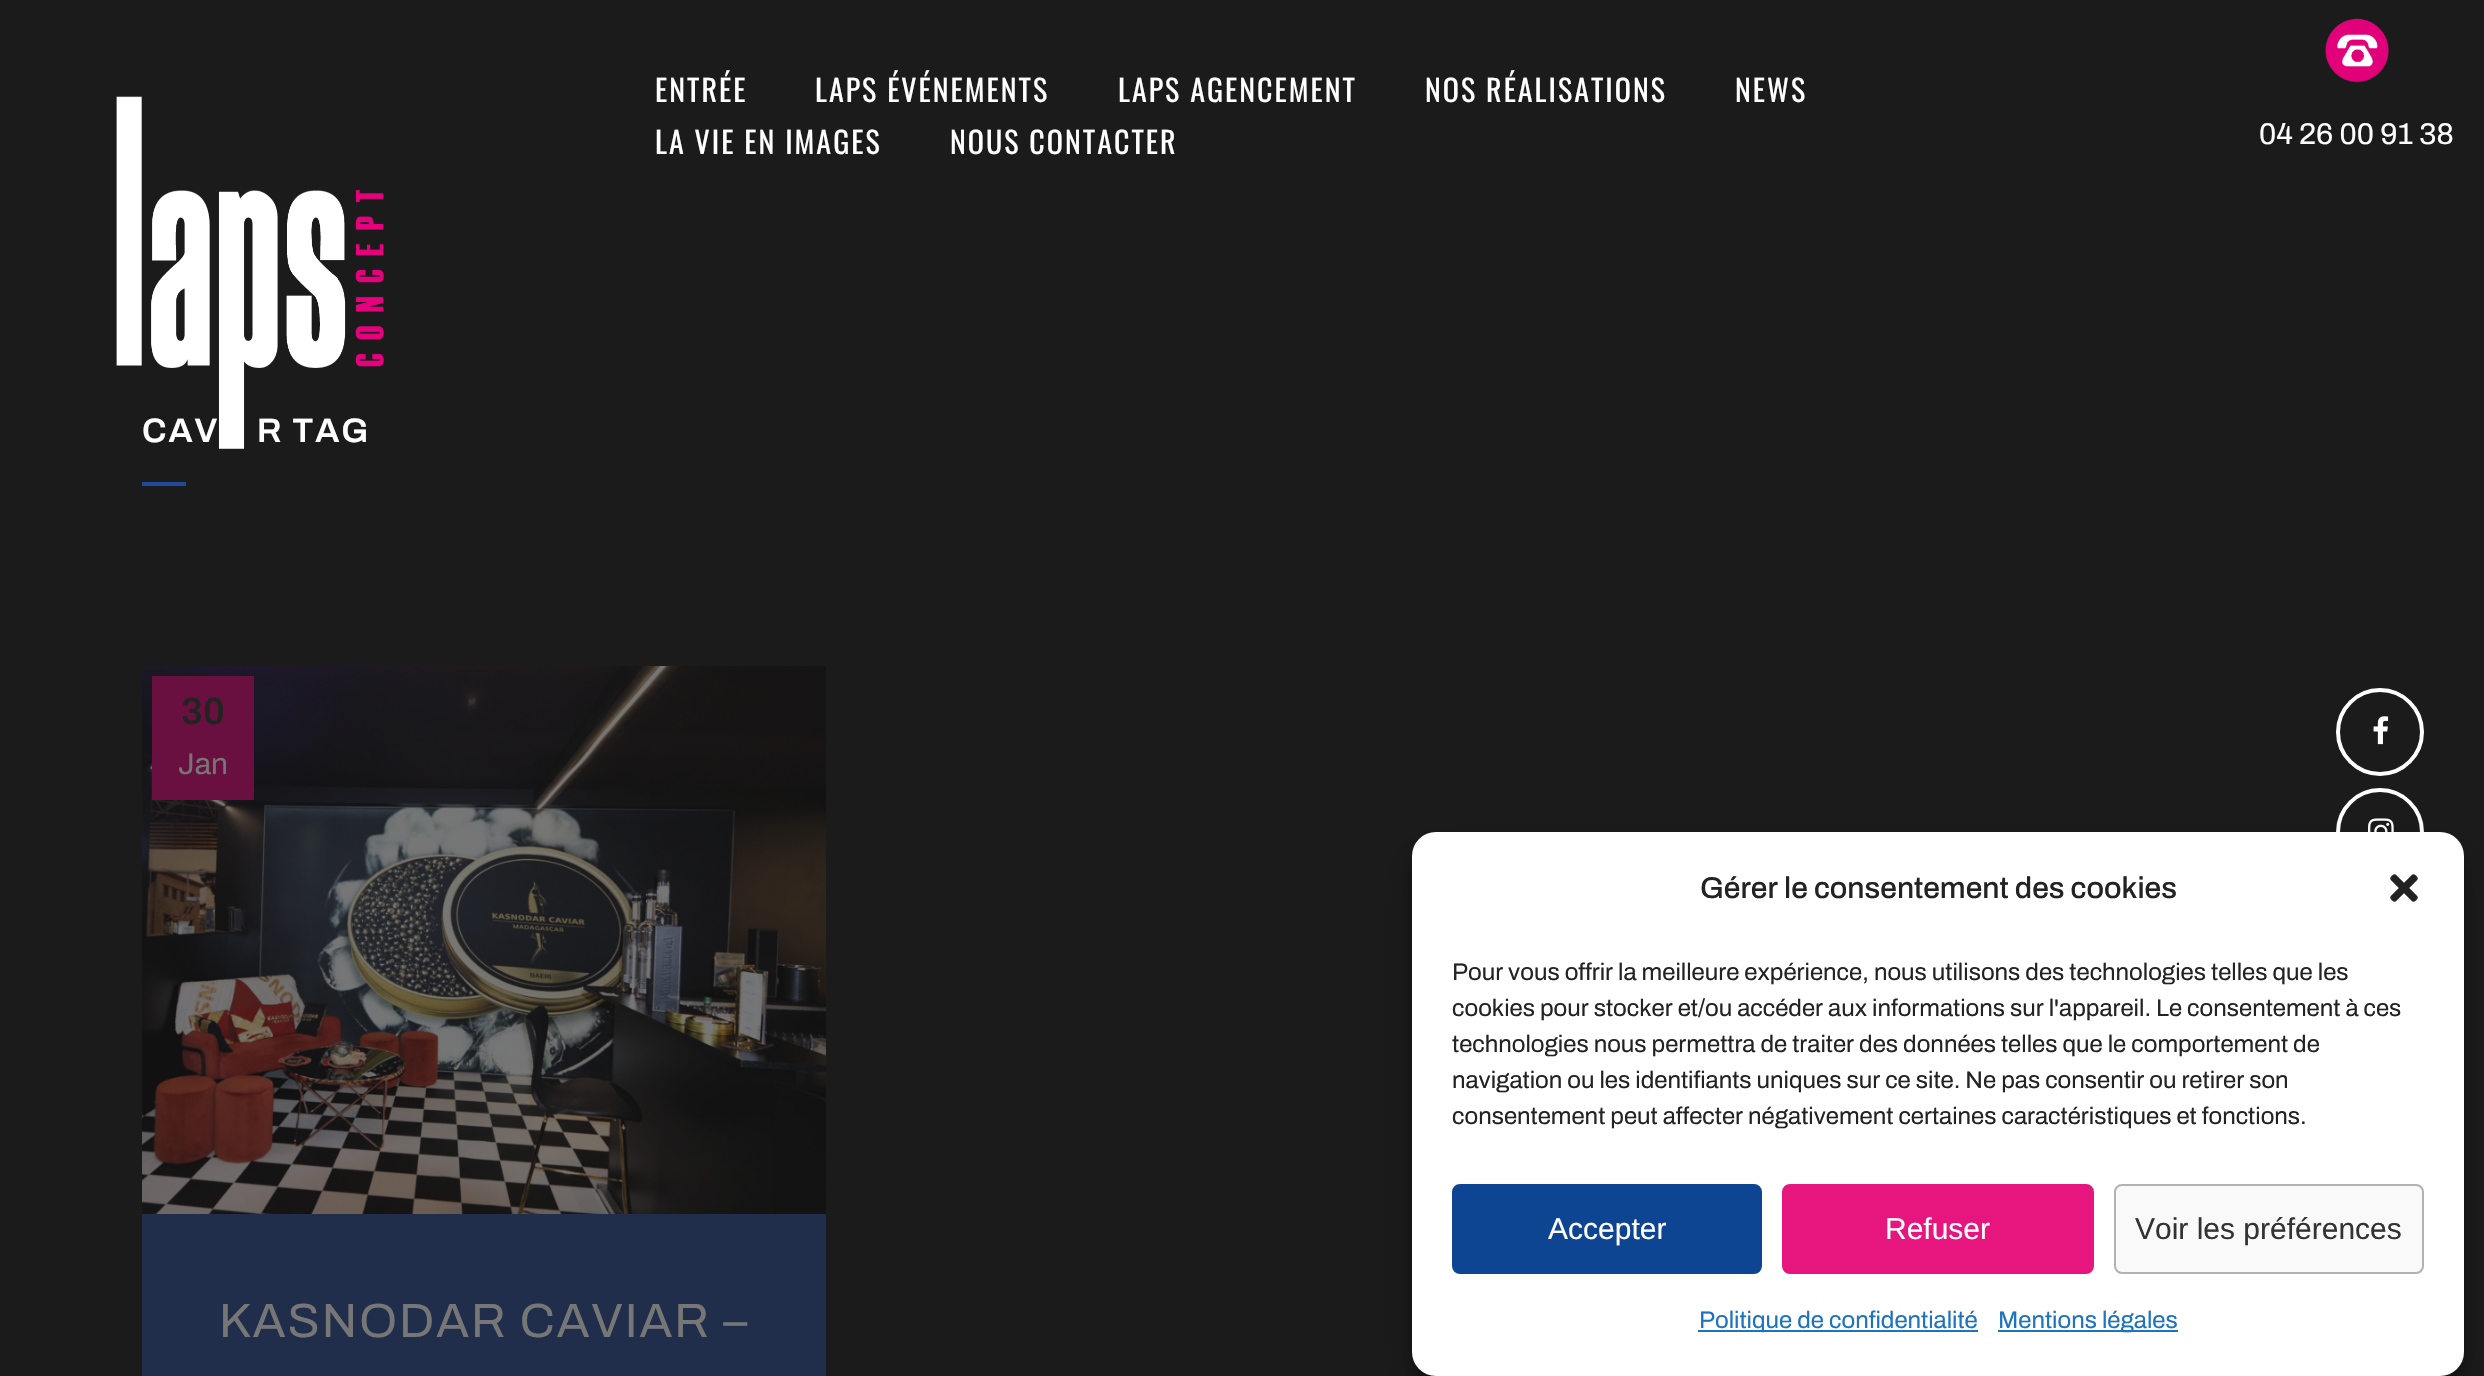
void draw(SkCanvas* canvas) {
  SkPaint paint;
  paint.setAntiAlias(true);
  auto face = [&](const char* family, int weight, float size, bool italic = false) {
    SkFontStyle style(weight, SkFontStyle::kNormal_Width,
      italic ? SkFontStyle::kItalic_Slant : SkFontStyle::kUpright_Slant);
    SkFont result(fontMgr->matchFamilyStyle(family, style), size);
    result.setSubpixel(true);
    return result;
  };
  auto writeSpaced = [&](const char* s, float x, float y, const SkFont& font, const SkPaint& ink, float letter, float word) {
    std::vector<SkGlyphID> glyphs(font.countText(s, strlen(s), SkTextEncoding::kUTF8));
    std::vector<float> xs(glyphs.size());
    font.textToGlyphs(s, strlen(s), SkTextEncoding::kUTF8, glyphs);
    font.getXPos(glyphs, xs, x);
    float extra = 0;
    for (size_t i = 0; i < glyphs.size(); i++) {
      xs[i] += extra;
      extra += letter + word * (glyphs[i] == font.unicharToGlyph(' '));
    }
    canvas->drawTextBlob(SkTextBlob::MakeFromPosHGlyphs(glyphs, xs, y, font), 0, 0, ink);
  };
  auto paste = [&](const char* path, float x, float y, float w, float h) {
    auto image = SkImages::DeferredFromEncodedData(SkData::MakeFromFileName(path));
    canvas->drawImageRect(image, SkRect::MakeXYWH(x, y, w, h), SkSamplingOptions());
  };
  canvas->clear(0xff1b1b1b);
  paste("img/2.png", 2325, 18, 64, 65);
  paint.setColor(0xff224998);
  canvas->drawRect(SkRect::MakeXYWH(142, 482, 44, 4), paint);
  paste("img/3.png", 142, 666, 684, 548);
  paint.setColor(0xff6a1041);
  canvas->drawRect(SkRect::MakeXYWH(152, 676, 102, 124), paint);
  paint.setColor(0xff202e4c);
  canvas->drawRect(SkRect::MakeXYWH(142, 1214, 684, 162), paint);
  paint.setStroke(true);
  paint.setStrokeWidth(4);
  paint.setColor(0xffffffff);
  canvas->drawCircle(2380, 732, 42, paint);
  paste("img/4.png", 2373, 716, 16, 29);
  canvas->drawCircle(2380, 832, 42, paint);
  paste("img/5.png", 2368, 818, 26, 14);
  paint.setStroke(false);
  paint.setColor(0x3b000000);
  paint.setMaskFilter(SkMaskFilter::MakeBlur(kNormal_SkBlurStyle, 6));
  canvas->drawRoundRect(SkRect::MakeXYWH(1412, 844, 1052, 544), 24, 24, paint);
  paint.setMaskFilter(nullptr);
  paint.setColor(0x30000000);
  paint.setMaskFilter(SkMaskFilter::MakeBlur(kNormal_SkBlurStyle, 20));
  canvas->drawRoundRect(SkRect::MakeXYWH(1412, 852, 1052, 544), 24, 24, paint);
  paint.setMaskFilter(nullptr);
  paint.setColor(0xffffffff);
  canvas->drawRoundRect(SkRect::MakeXYWH(1412, 832, 1052, 544), 24, 24, paint);
  paste("img/6.png", 2390, 874, 28, 28);
  paint.setColor(0xff0e4592);
  canvas->drawRoundRect(SkRect::MakeXYWH(1453, 1185, 308, 88), 7, 7, paint);
  paint.setStroke(true);
  paint.setStrokeWidth(2);
  canvas->drawRoundRect(SkRect::MakeXYWH(1453, 1185, 308, 88), 7, 7, paint);
  paint.setStroke(false);
  paint.setColor(0xffe6167e);
  canvas->drawRoundRect(SkRect::MakeXYWH(1783, 1185, 310, 88), 7, 7, paint);
  paint.setStroke(true);
  canvas->drawRoundRect(SkRect::MakeXYWH(1783, 1185, 310, 88), 7, 7, paint);
  paint.setStroke(false);
  paint.setColor(0xfff9f9f9);
  canvas->drawRoundRect(SkRect::MakeXYWH(2115, 1185, 308, 88), 7, 7, paint);
  paint.setStroke(true);
  paint.setColor(0xffb2b2b2);
  canvas->drawRoundRect(SkRect::MakeXYWH(2115, 1185, 308, 88), 7, 7, paint);
  paint.setStroke(false);
  paint.setColor(0xff1e73be);
  canvas->drawRect(SkRect::MakeXYWH(1698, 1330, 280, 2), paint);
  canvas->drawRect(SkRect::MakeXYWH(1998, 1330, 180, 2), paint);
  auto f0 = face("Oswald", 400, 30);
  paint.setColor(0xffffffff);
  {
    const struct { const char* s; float x, y; } items[] = {
      {"ENTRÉE", 655, 102},
      {"LAPS ÉVÉNEMENTS", 815, 102},
      {"LAPS AGENCEMENT", 1118, 102},
      {"NOS RÉALISATIONS", 1425, 102},
      {"NEWS", 1735, 102},
      {"LA VIE EN IMAGES", 655, 154},
      {"NOUS CONTACTER", 950, 154},
    };
    for (auto [s, x, y] : items) {
      writeSpaced(s, x, y, f0, paint, 2, 0);
    }
  }
  auto f1 = face("Archivo", 400, 30);
  canvas->drawString("04 26 00 91 38", 2259, 144, f1, paint);
  auto f2 = face("Archivo", 600, 34);
  writeSpaced("CAV", 142, 442, f2, paint, 2, 0);
  writeSpaced("R TAG", 257, 442, f2, paint, 2, 0);
  paste("img/1.png", 116, 96, 268, 353);
  auto f3 = face("Archivo", 600, 38);
  paint.setColor(0xff232323);
  canvas->drawString("30", 181, 724, f3, paint);
  paint.setColor(0xff767676);
  canvas->drawString("Jan", 178, 774, f1, paint);
  auto f4 = face("Archivo", 400, 48);
  writeSpaced("KASNODAR CAVIAR –", 219, 1337, f4, paint, 2, 0);
  auto f5 = face("Archivo", 500, 30);
  paint.setColor(0xff232323);
  canvas->drawString("Gérer le consentement des cookies", 1700, 898, f5, paint);
  auto f6 = face("Archivo", 400, 24);
  {
    const struct { const char* s; float x, y; } items[] = {
      {"Pour vous offrir la meilleure expérience, nous utilisons des technologies telles que les", 1452, 980},
      {"cookies pour stocker et/ou accéder aux informations sur l'appareil. Le consentement à ces", 1452, 1016},
      {"technologies nous permettra de traiter des données telles que le comportement de", 1452, 1052},
      {"navigation ou les identifiants uniques sur ce site. Ne pas consentir ou retirer son", 1452, 1088},
      {"consentement peut affecter négativement certaines caractéristiques et fonctions.", 1452, 1124},
    };
    for (auto [s, x, y] : items) {
      canvas->drawString(s, x, y, f6, paint);
    }
  }
  auto f7 = face("Liberation Sans", 400, 30);
  paint.setColor(0xffffffff);
  canvas->drawString("Accepter", 1548, 1239, f7, paint);
  canvas->drawString("Refuser", 1885, 1239, f7, paint);
  paint.setColor(0xff333333);
  canvas->drawString("Voir les préférences", 2135, 1239, f7, paint);
  paint.setColor(0xff1e73be);
  canvas->drawString("Politique de confidentialité", 1699, 1328, f6, paint);
  canvas->drawString("Mentions légales", 1998, 1328, f6, paint);
}
